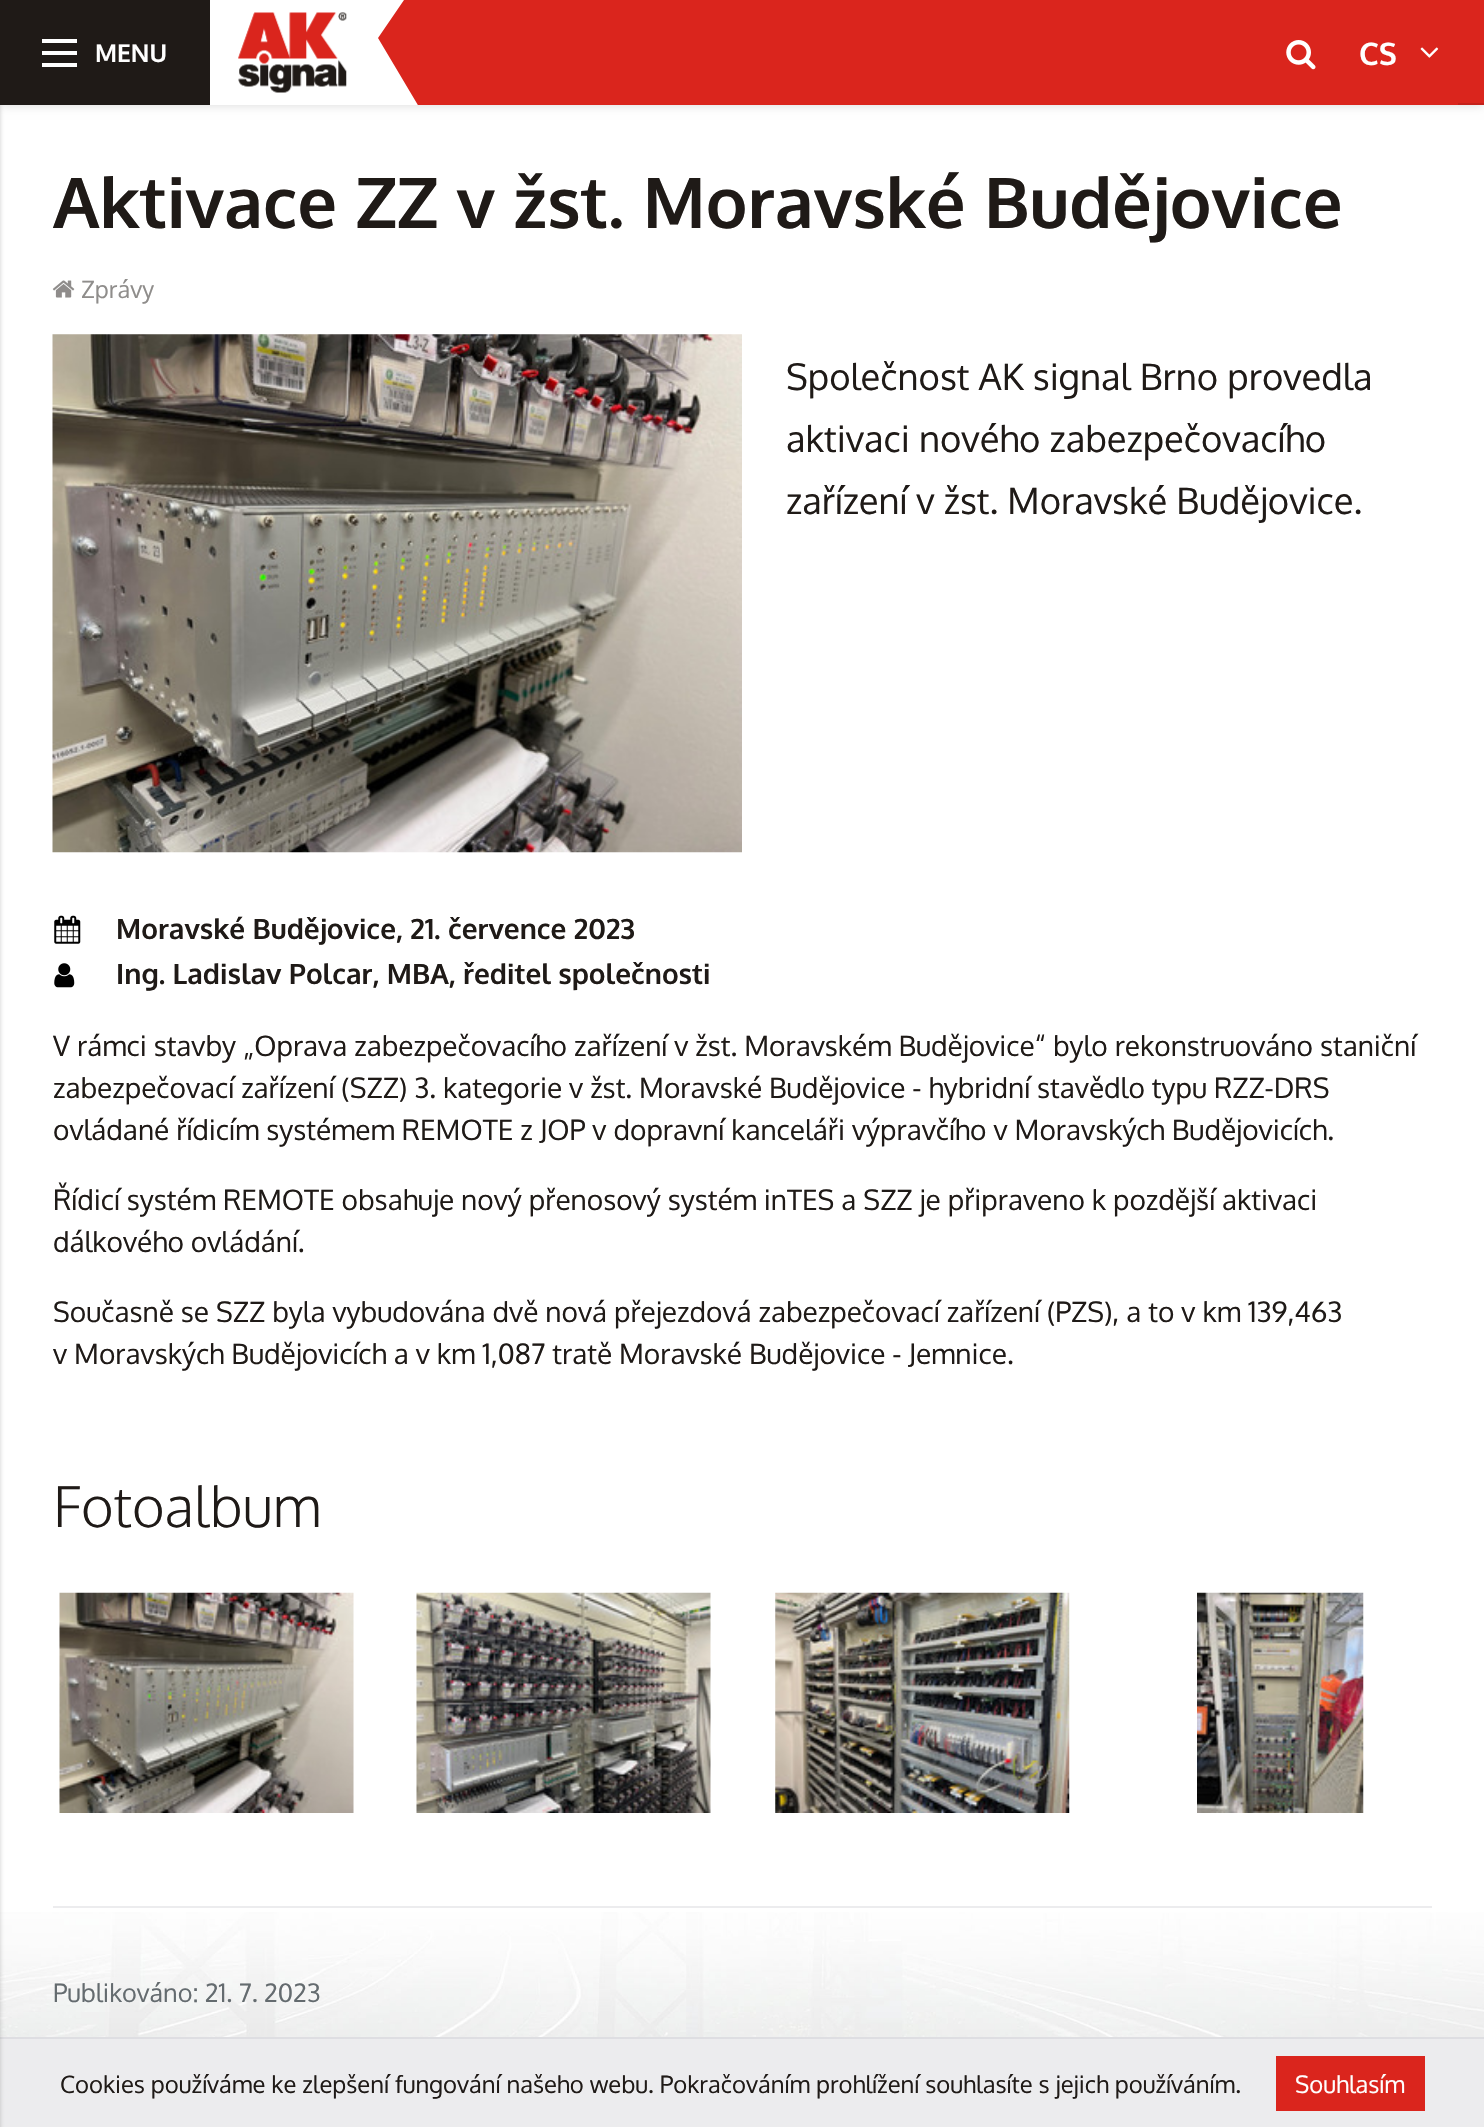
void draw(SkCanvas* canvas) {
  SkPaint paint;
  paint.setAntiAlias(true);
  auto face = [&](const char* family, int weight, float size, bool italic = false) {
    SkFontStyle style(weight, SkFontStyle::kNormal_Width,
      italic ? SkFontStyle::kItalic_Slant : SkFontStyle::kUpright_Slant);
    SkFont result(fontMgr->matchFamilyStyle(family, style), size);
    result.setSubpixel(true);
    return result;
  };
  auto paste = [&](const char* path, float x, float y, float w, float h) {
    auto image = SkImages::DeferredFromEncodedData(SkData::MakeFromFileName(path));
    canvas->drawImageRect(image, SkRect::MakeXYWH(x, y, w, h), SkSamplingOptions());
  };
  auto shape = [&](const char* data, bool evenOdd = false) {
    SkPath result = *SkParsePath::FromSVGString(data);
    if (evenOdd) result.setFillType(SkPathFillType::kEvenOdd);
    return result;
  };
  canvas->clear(0xffffffff);
  paint.setColor(0x26000000);
  paint.setMaskFilter(SkMaskFilter::MakeBlur(kNormal_SkBlurStyle, 5));
  canvas->drawRect(SkRect::MakeXYWH(0, 0, 1484, 105), paint);
  paint.setMaskFilter(nullptr);
  paint.setColor(0xffda251d);
  canvas->drawRect(SkRect::MakeXYWH(1458, 0, 26, 103), paint);
  paint.setColor(0xffc4211a);
  canvas->drawRect(SkRect::MakeXYWH(1458, 103, 26, 2), paint);
  paste("img/4.png", 0, 1912, 1484, 125);
  paint.setColor(0xffececee);
  canvas->drawRect(SkRect::MakeXYWH(0, 2039, 1484, 88), paint);
  paint.setColor(0xffdedee2);
  canvas->drawRect(SkRect::MakeXYWH(0, 2037, 1484, 2), paint);
  paint.setColor(0x33000000);
  paint.setMaskFilter(SkMaskFilter::MakeBlur(kNormal_SkBlurStyle, 2));
  canvas->drawRect(SkRect::MakeXYWH(-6, 4, 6, 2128), paint);
  paint.setMaskFilter(nullptr);
  {
    const struct { float x, y, w, h; SkColor color; } items[] = {
      {0, 0, 210, 105, 0xff1f1a17},
      {42, 39, 35, 4, 0xffffffff},
      {42, 51, 35, 4, 0xffffffff},
      {42, 63, 35, 4, 0xffffffff},
      {210, 0, 165, 105, 0xffffffff},
    };
    for (auto [x, y, w, h, color] : items) {
      paint.setColor(color);
      canvas->drawRect(SkRect::MakeXYWH(x, y, w, h), paint);
    }
  }
  paste("img/1.png", 238, 12, 109, 81);
  paint.setColor(0xffda251d);
  canvas->drawRect(SkRect::MakeXYWH(378, 0, 1080, 105), paint);
  canvas->save();
  canvas->clipRect(SkRect::MakeXYWH(375, 0, 50, 105));
  paint.setColor(0xffffffff);
  canvas->drawPath(shape("M374 0H404L378 38L425 117H374Z"), paint);
  canvas->restore();
  paste("img/2.png", 1286, 40, 30, 30);
  paste("img/3.png", 1420, 47, 19, 11);
  paste("img/5.png", 52, 280, 23, 18);
  paste("img/6.png", 52, 334, 690, 519);
  paste("img/7.png", 54, 915, 27, 29);
  paste("img/8.png", 54, 963, 21, 25);
  paste("img/9.png", 59, 1592, 295, 221);
  paste("img/10.png", 416, 1592, 295, 221);
  paste("img/11.png", 775, 1592, 295, 221);
  paste("img/12.png", 1197, 1592, 167, 221);
  paint.setColor(0xffececee);
  canvas->drawRect(SkRect::MakeXYWH(53, 1906, 1379, 2), paint);
  paint.setColor(0xffda251d);
  canvas->drawRect(SkRect::MakeXYWH(1276, 2056, 149, 55), paint);
  auto f0 = face("Oxygen", 700, 24.5f);
  paint.setColor(0xffffffff);
  canvas->drawString("MENU", 95, 62, f0, paint);
  auto f1 = face("Oxygen", 700, 31);
  canvas->drawString("CS", 1359, 65, f1, paint);
  auto f2 = face("Oxygen", 700, 70);
  paint.setColor(0xff1f1a17);
  canvas->drawString("Aktivace ZZ v žst. Moravské Budějovice", 53, 228, f2, paint);
  auto f3 = face("Oxygen", 400, 23.8f);
  paint.setColor(0xff8f8d8b);
  canvas->drawString("Zprávy", 81, 298, f3, paint);
  auto f4 = face("Oxygen", 400, 36.4f);
  paint.setColor(0xff1f1a17);
  {
    const struct { const char* s; float x, y; } items[] = {
      {"Společnost AK signal Brno provedla", 786, 390},
      {"aktivaci nového zabezpečovacího", 786, 452},
      {"zařízení v žst. Moravské Budějovice.", 786, 514},
    };
    for (auto [s, x, y] : items) {
      canvas->drawString(s, x, y, f4, paint);
    }
  }
  auto f5 = face("Oxygen", 700, 28);
  canvas->drawString("Moravské Budějovice, 21. července 2023", 116, 939, f5, paint);
  canvas->drawString("Ing. Ladislav Polcar, MBA, ředitel společnosti", 116, 984, f5, paint);
  auto f6 = face("Oxygen", 400, 28);
  {
    const struct { const char* s; float x, y; } items[] = {
      {"V rámci stavby „Oprava zabezpečovacího zařízení v žst. Moravském Budějovice“ bylo rekonstruováno staniční", 53, 1056},
      {"zabezpečovací zařízení (SZZ) 3. kategorie v žst. Moravské Budějovice - hybridní stavědlo typu RZZ-DRS", 53, 1098},
      {"ovládané řídicím systémem REMOTE z JOP v dopravní kanceláři výpravčího v Moravských Budějovicích.", 53, 1140},
      {"Řídicí systém REMOTE obsahuje nový přenosový systém inTES a SZZ je připraveno k pozdější aktivaci", 53, 1210},
      {"dálkového ovládání.", 53, 1252},
      {"Současně se SZZ byla vybudována dvě nová přejezdová zabezpečovací zařízení (PZS), a to v km 139,463", 53, 1322},
      {"v Moravských Budějovicích a v km 1,087 tratě Moravské Budějovice - Jemnice.", 53, 1364},
    };
    for (auto [s, x, y] : items) {
      canvas->drawString(s, x, y, f6, paint);
    }
  }
  auto f7 = face("Oxygen", 300, 56);
  canvas->drawString("Fotoalbum", 53, 1527, f7, paint);
  auto f8 = face("Oxygen", 400, 25.25f);
  paint.setColor(0xff646b6f);
  canvas->drawString("Publikováno: 21. 7. 2023", 53, 2002, f8, paint);
  paint.setColor(0xff1f1a17);
  canvas->drawString("Cookies používáme ke zlepšení fungování našeho webu. Pokračováním prohlížení souhlasíte s jejich používáním.", 60, 2093, f3, paint);
  paint.setColor(0xffffffff);
  canvas->drawString("Souhlasím", 1295, 2093, f3, paint);
}
